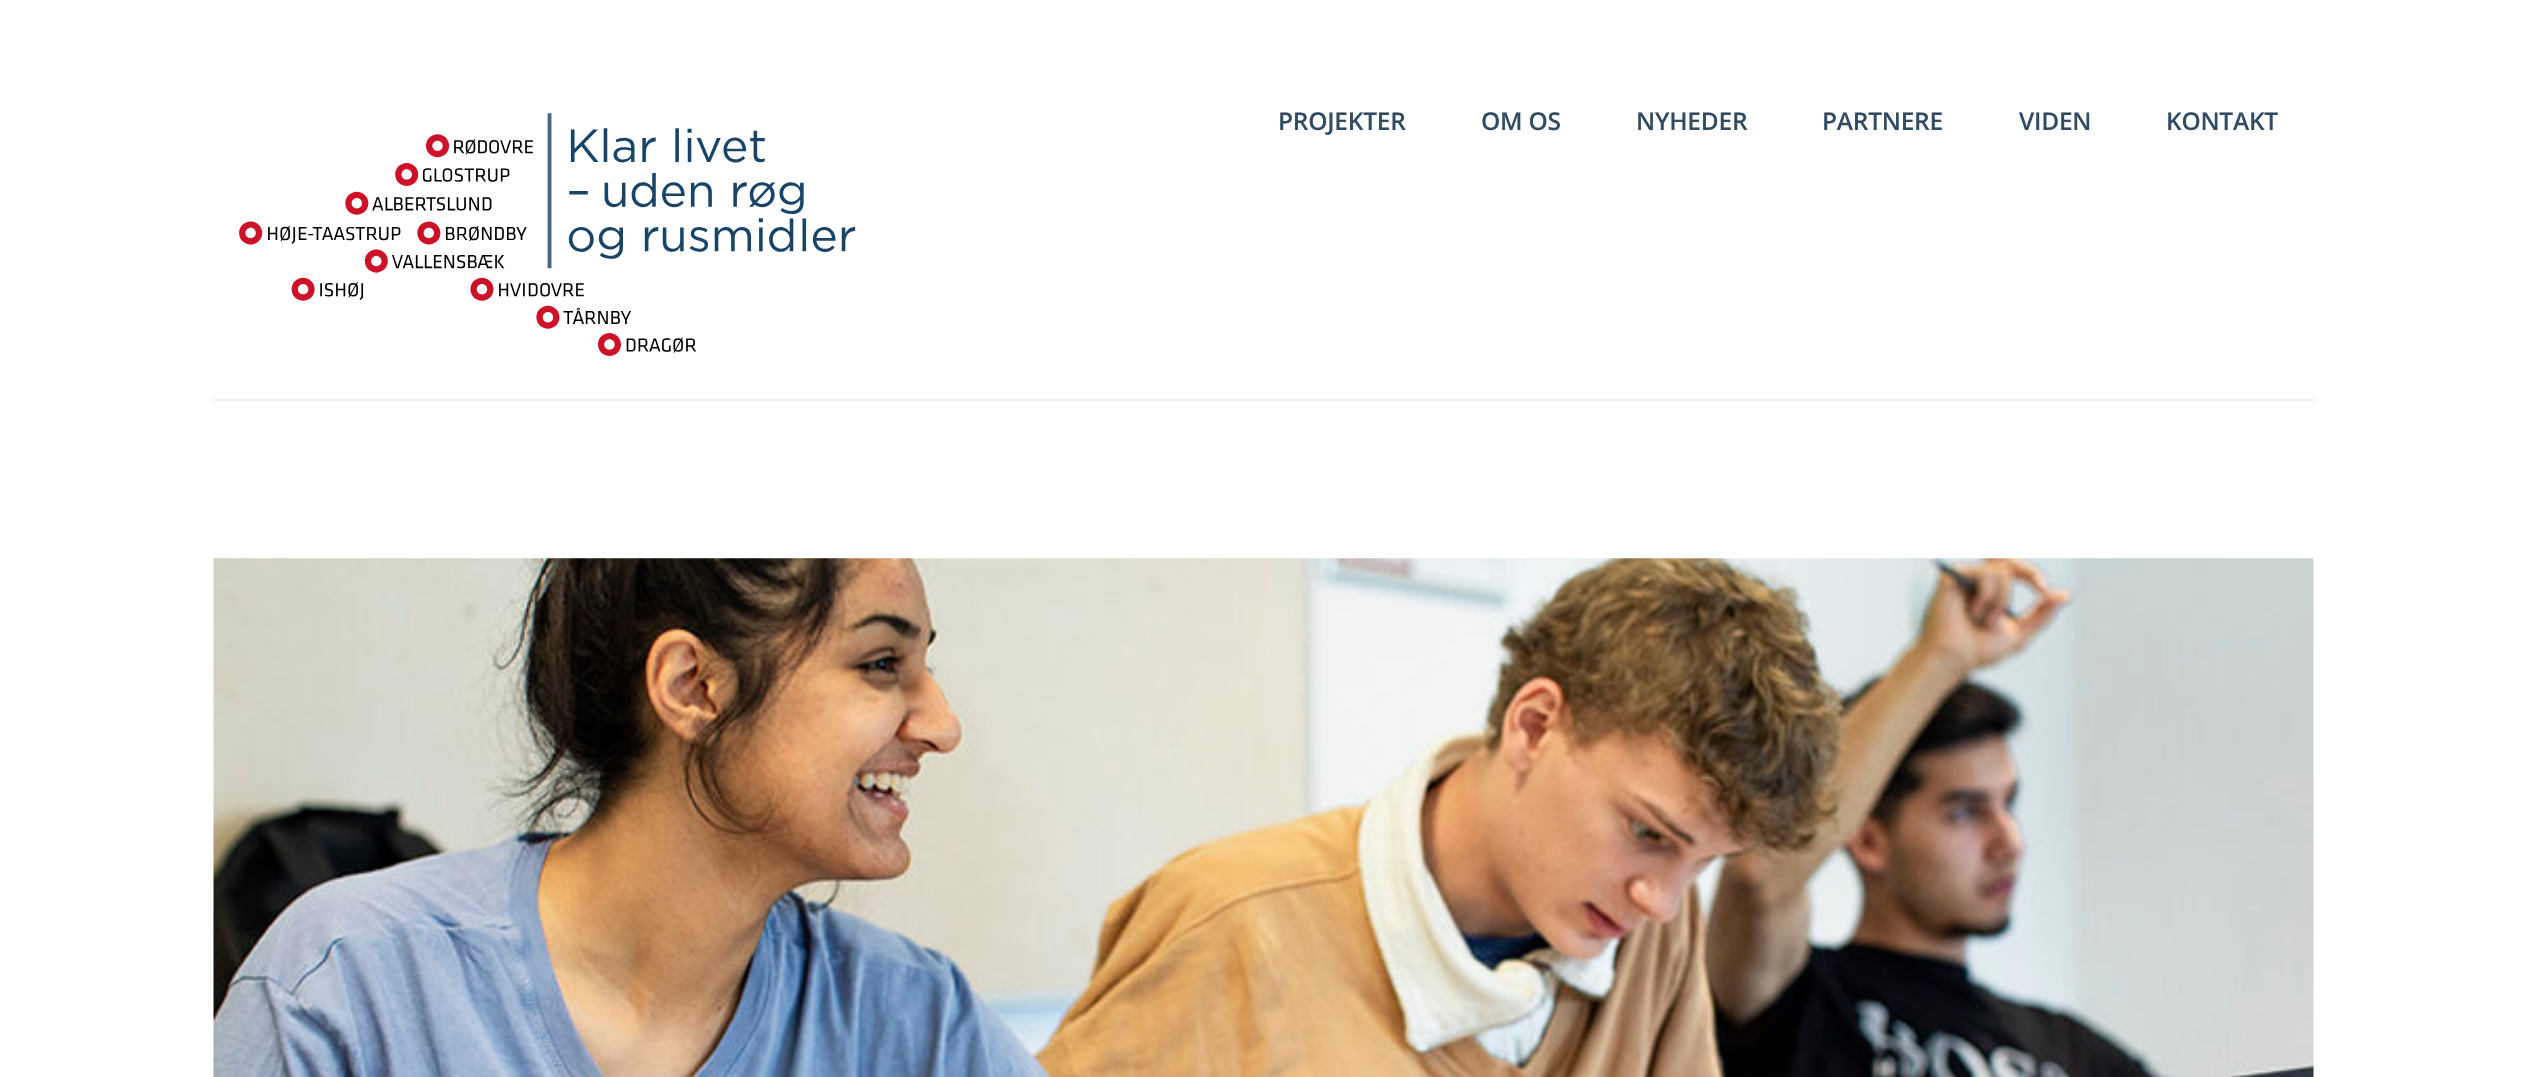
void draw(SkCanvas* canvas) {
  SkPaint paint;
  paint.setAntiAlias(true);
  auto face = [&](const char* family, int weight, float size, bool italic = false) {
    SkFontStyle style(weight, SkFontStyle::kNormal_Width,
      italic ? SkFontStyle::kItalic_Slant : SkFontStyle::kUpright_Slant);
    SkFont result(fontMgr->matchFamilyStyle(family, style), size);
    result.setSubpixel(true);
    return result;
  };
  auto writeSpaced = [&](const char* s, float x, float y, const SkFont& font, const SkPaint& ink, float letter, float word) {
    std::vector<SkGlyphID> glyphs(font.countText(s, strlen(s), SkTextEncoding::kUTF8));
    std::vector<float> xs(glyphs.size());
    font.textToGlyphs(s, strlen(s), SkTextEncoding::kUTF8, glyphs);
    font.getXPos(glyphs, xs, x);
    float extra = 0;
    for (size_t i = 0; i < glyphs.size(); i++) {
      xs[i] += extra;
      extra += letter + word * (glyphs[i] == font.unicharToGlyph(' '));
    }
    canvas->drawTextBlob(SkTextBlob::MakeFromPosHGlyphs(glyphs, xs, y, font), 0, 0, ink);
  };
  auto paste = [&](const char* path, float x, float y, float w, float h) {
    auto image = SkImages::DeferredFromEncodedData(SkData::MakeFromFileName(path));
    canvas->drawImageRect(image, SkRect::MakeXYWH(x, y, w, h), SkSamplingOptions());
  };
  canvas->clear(0xffffffff);
  paint.setColor(0xffedecee);
  canvas->drawRect(SkRect::MakeXYWH(214, 399, 2100, 2), paint);
  paste("img/1.png", 239, 113, 617, 243);
  paste("img/2.png", 213, 558, 2101, 519);
  auto f0 = face("Open Sans", 600, 24.5f);
  paint.setColor(0xff304b62);
  {
    const struct { const char* s; float x, y; } items[] = {
      {"PROJEKTER", 1278, 130},
      {"OM OS", 1481, 130},
      {"NYHEDER", 1636, 130},
      {"PARTNERE", 1822, 130},
      {"VIDEN", 2019, 130},
      {"KONTAKT", 2166, 130},
    };
    for (auto [s, x, y] : items) {
      writeSpaced(s, x, y, f0, paint, -0.25f, 0);
    }
  }
}
